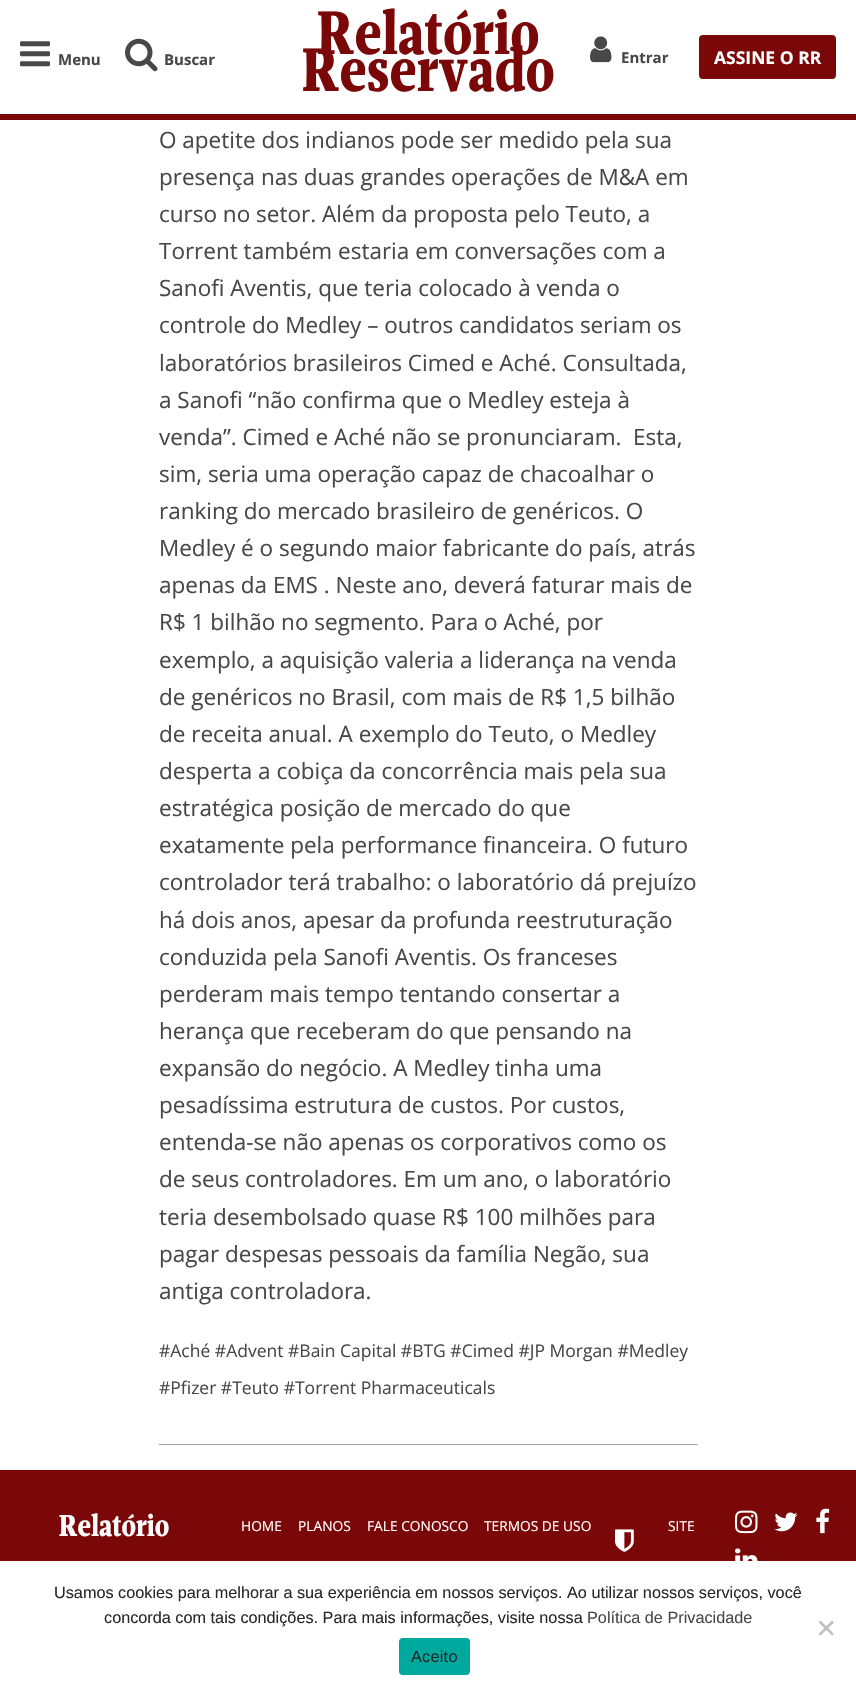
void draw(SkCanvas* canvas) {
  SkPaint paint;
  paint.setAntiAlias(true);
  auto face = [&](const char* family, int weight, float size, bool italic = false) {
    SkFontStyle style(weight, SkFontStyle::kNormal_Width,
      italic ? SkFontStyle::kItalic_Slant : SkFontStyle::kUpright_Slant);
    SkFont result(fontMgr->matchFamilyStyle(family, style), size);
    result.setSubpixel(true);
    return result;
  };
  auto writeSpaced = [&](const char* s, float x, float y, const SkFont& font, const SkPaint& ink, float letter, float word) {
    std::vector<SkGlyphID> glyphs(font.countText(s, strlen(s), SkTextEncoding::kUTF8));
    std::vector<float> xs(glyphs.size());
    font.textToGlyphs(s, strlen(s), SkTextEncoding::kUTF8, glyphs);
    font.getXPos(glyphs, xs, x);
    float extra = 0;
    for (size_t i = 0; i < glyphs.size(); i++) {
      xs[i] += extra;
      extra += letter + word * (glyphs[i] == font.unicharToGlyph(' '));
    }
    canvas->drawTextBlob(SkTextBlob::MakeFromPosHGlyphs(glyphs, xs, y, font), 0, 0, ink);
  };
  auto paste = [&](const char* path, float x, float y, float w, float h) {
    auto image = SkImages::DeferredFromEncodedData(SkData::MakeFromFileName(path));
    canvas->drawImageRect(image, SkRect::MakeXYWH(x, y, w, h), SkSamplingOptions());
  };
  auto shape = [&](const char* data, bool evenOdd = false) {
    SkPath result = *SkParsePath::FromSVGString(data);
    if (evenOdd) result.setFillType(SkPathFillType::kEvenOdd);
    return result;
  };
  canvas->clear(0xffffffff);
  paint.setColor(0xff7b0808);
  canvas->drawRect(SkRect::MakeXYWH(0, 114, 856, 6), paint);
  paste("img/1.png", 20, 41, 30, 26);
  paste("img/2.png", 125, 38, 33, 34);
  paste("img/3.png", 590, 36, 22, 27);
  canvas->drawRoundRect(SkRect::MakeXYWH(700.5f, 36.5f, 134, 41), 2.5f, 2.5f, paint);
  paint.setStroke(true);
  paint.setStrokeWidth(3);
  canvas->drawRoundRect(SkRect::MakeXYWH(700.5f, 36.5f, 134, 41), 2.5f, 2.5f, paint);
  paint.setStroke(false);
  paint.setColor(0xffa5a5a5);
  canvas->drawRect(SkRect::MakeXYWH(159, 1444, 539, 1), paint);
  paint.setColor(0xff7b0808);
  canvas->drawRect(SkRect::MakeXYWH(0, 1470, 856, 91), paint);
  paste("img/4.png", 615, 1529, 19, 23);
  paste("img/5.png", 735, 1510, 23, 24);
  paste("img/6.png", 774, 1512, 24, 20);
  paste("img/7.png", 816, 1508, 14, 26);
  paste("img/8.png", 735, 1548, 23, 13);
  paint.setColor(0xffc0c0c0);
  canvas->drawPath(shape("M832 1620.5L834 1622.5L820.5 1635.5L818.5 1634Z"), paint);
  canvas->drawPath(shape("M818.5 1622.5L820.5 1620.5L834 1634L832 1635.5Z"), paint);
  paint.setColor(0xff00a99d);
  canvas->drawRoundRect(SkRect::MakeXYWH(399, 1638, 71, 37), 4, 4, paint);
  auto f0 = face("Open Sans", 700, 15);
  paint.setColor(0xff484848);
  canvas->drawString("Menu", 58, 65, f0, paint);
  canvas->drawString("Buscar", 164, 65, f0, paint);
  auto f1 = face("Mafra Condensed", 700, 62.5f);
  paint.setColor(0xff7b0808);
  canvas->drawString("Relatório", 317, 54, f1, paint);
  canvas->drawString("Reservado", 302, 91, f1, paint);
  paint.setColor(0xff484848);
  canvas->drawString("Entrar", 621, 63, f0, paint);
  auto f2 = face("Open Sans", 700, 17.5f);
  paint.setColor(0xffffffff);
  canvas->drawString("ASSINE O RR", 714, 64, f2, paint);
  auto f3 = face("Open Sans", 400, 22.5f);
  paint.setColor(0xff484848);
  {
    const struct { const char* s; float x, y; } items[] = {
      {"O apetite dos indianos pode ser medido pela sua", 159, 148},
      {"presença nas duas grandes operações de M&A em", 159, 185},
      {"curso no setor. Além da proposta pelo Teuto, a", 159, 222},
      {"Torrent também estaria em conversações com a", 159, 259},
      {"Sanofi Aventis, que teria colocado à venda o", 159, 296},
      {"controle do Medley – outros candidatos seriam os", 159, 333},
      {"laboratórios brasileiros Cimed e Aché. Consultada,", 159, 371},
      {"a Sanofi “não confirma que o Medley esteja à", 159, 408},
      {"venda”. Cimed e Aché não se pronunciaram.  Esta,", 159, 445},
      {"sim, seria uma operação capaz de chacoalhar o", 159, 482},
      {"ranking do mercado brasileiro de genéricos. O", 159, 519},
      {"Medley é o segundo maior fabricante do país, atrás", 159, 556},
      {"apenas da EMS . Neste ano, deverá faturar mais de", 159, 593},
      {"R$ 1 bilhão no segmento. Para o Aché, por", 159, 630},
      {"exemplo, a aquisição valeria a liderança na venda", 159, 668},
      {"de genéricos no Brasil, com mais de R$ 1,5 bilhão", 159, 705},
      {"de receita anual. A exemplo do Teuto, o Medley", 159, 742},
      {"desperta a cobiça da concorrência mais pela sua", 159, 779},
      {"estratégica posição de mercado do que", 159, 816},
      {"exatamente pela performance financeira. O futuro", 159, 853},
      {"controlador terá trabalho: o laboratório dá prejuízo", 159, 890},
      {"há dois anos, apesar da profunda reestruturação", 159, 928},
      {"conduzida pela Sanofi Aventis. Os franceses", 159, 965},
      {"perderam mais tempo tentando consertar a", 159, 1002},
      {"herança que receberam do que pensando na", 159, 1039},
      {"expansão do negócio. A Medley tinha uma", 159, 1076},
      {"pesadíssima estrutura de custos. Por custos,", 159, 1113},
      {"entenda-se não apenas os corporativos como os", 159, 1150},
      {"de seus controladores. Em um ano, o laboratório", 159, 1187},
      {"teria desembolsado quase R$ 100 milhões para", 159, 1225},
      {"pagar despesas pessoais da família Negão, sua", 159, 1262},
      {"antiga controladora.", 159, 1299},
    };
    for (auto [s, x, y] : items) {
      canvas->drawString(s, x, y, f3, paint);
    }
  }
  auto f4 = face("Open Sans", 400, 17.5f);
  canvas->drawString("#Aché #Advent #Bain Capital #BTG #Cimed #JP Morgan #Medley", 159, 1357, f4, paint);
  canvas->drawString("#Pfizer #Teuto #Torrent Pharmaceuticals", 159, 1394, f4, paint);
  auto f5 = face("Mafra Condensed", 700, 31);
  paint.setColor(0xffffffff);
  canvas->drawString("Relatório", 59, 1536, f5, paint);
  auto f6 = face("Open Sans", 400, 13.75f);
  {
    const struct { const char* s; float x, y; } items[] = {
      {"HOME", 241, 1531},
      {"PLANOS", 298, 1531},
      {"FALE CONOSCO", 367, 1531},
      {"TERMOS DE USO", 484, 1531},
      {"SITE", 668, 1531},
    };
    for (auto [s, x, y] : items) {
      canvas->drawString(s, x, y, f6, paint);
    }
  }
  auto f7 = face("Liberation Sans", 400, 16.25f);
  paint.setColor(0xff282828);
  canvas->drawString("Usamos cookies para melhorar a sua experiência em nossos serviços. Ao utilizar nossos serviços, você", 54, 1598, f7, paint);
  canvas->drawString("concorda com tais condições. Para mais informações, visite nossa", 104, 1623, f7, paint);
  paint.setColor(0xff484848);
  canvas->drawString("Política de Privacidade", 587, 1623, f7, paint);
  paint.setColor(0xff282828);
  writeSpaced("Aceito", 411, 1662, f7, paint, 0.25f, 0);
}
